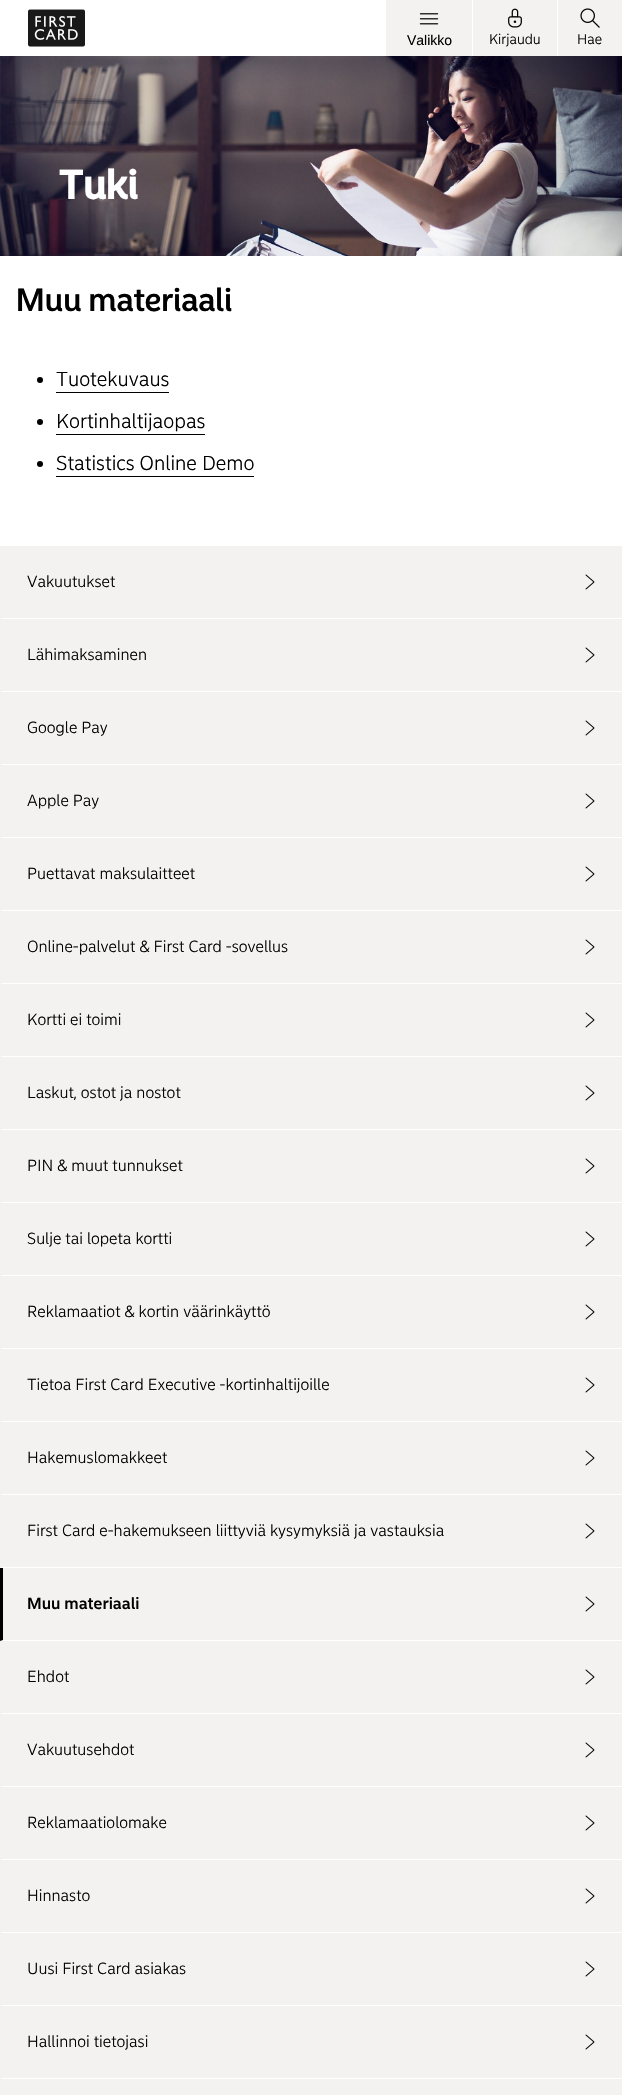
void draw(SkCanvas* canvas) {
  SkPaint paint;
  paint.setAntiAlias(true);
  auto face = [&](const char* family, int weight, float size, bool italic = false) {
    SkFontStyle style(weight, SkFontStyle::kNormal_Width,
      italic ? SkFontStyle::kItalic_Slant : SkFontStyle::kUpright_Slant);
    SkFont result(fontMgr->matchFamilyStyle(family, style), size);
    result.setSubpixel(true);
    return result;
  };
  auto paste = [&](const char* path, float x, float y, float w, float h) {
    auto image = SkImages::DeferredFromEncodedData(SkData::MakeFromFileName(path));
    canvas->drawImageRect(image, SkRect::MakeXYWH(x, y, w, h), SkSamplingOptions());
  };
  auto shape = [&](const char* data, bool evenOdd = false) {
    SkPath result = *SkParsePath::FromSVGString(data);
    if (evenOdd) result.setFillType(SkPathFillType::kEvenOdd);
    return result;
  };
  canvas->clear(0xffffffff);
  paste("img/1.png", 28, 9, 57, 38);
  paint.setColor(0xfff4f2f1);
  canvas->drawRect(SkRect::MakeXYWH(386, 0, 86, 56), paint);
  paste("img/2.png", 419, 13, 20, 12);
  canvas->drawRect(SkRect::MakeXYWH(473, 0, 84, 56), paint);
  paste("img/3.png", 508, 8, 14, 20);
  canvas->drawRect(SkRect::MakeXYWH(558, 0, 64, 56), paint);
  paste("img/4.png", 580, 8, 20, 20);
  paste("img/5.png", 0, 56, 622, 200);
  paint.setColor(0xff000000);
  canvas->drawCircle(40, 380, 3, paint);
  canvas->drawRect(SkRect::MakeXYWH(56, 392, 113, 1), paint);
  canvas->drawCircle(40, 422, 3, paint);
  canvas->drawRect(SkRect::MakeXYWH(56, 434, 149, 1), paint);
  canvas->drawCircle(40, 464, 3, paint);
  canvas->drawRect(SkRect::MakeXYWH(56, 476, 198, 1), paint);
  paint.setColor(0xfff4f2f1);
  canvas->drawRect(SkRect::MakeXYWH(0, 546, 622, 1549), paint);
  paint.setColor(0xffffffff);
  canvas->drawPath(shape("M622 619H0L3 618H622Z"), paint);
  paste("img/6.png", 585, 574, 10, 16);
  canvas->drawPath(shape("M622 692H0L3 691H622Z"), paint);
  paste("img/6.png", 585, 647, 10, 16);
  canvas->drawPath(shape("M622 765H0L3 764H622Z"), paint);
  paste("img/6.png", 585, 720, 10, 16);
  canvas->drawPath(shape("M622 838H0L3 837H622Z"), paint);
  paste("img/6.png", 585, 793, 10, 16);
  canvas->drawPath(shape("M622 911H0L3 910H622Z"), paint);
  paste("img/6.png", 585, 866, 10, 16);
  canvas->drawPath(shape("M622 984H0L3 983H622Z"), paint);
  paste("img/6.png", 585, 939, 10, 16);
  canvas->drawPath(shape("M622 1057H0L3 1056H622Z"), paint);
  paste("img/6.png", 585, 1012, 10, 16);
  canvas->drawPath(shape("M622 1130H0L3 1129H622Z"), paint);
  paste("img/6.png", 585, 1085, 10, 16);
  canvas->drawPath(shape("M622 1203H0L3 1202H622Z"), paint);
  paste("img/6.png", 585, 1158, 10, 16);
  canvas->drawPath(shape("M622 1276H0L3 1275H622Z"), paint);
  paste("img/6.png", 585, 1231, 10, 16);
  canvas->drawPath(shape("M622 1349H0L3 1348H622Z"), paint);
  paste("img/6.png", 585, 1304, 10, 16);
  canvas->drawPath(shape("M622 1422H0L3 1421H622Z"), paint);
  paste("img/6.png", 585, 1377, 10, 16);
  canvas->drawPath(shape("M622 1495H0L3 1494H622Z"), paint);
  paste("img/6.png", 585, 1450, 10, 16);
  canvas->drawPath(shape("M622 1568H0L3 1567H622Z"), paint);
  paste("img/6.png", 585, 1523, 10, 16);
  canvas->drawPath(shape("M622 1641H0L3 1640H622Z"), paint);
  paint.setColor(0xff000000);
  canvas->drawPath(shape("M0 1641V1568H3V1640Z"), paint);
  paste("img/6.png", 585, 1596, 10, 16);
  paint.setColor(0xffffffff);
  canvas->drawPath(shape("M622 1714H0L3 1713H622Z"), paint);
  paste("img/6.png", 585, 1669, 10, 16);
  canvas->drawPath(shape("M622 1787H0L3 1786H622Z"), paint);
  paste("img/6.png", 585, 1742, 10, 16);
  canvas->drawPath(shape("M622 1860H0L3 1859H622Z"), paint);
  paste("img/6.png", 585, 1815, 10, 16);
  canvas->drawPath(shape("M622 1933H0L3 1932H622Z"), paint);
  paste("img/6.png", 585, 1888, 10, 16);
  canvas->drawPath(shape("M622 2006H0L3 2005H622Z"), paint);
  paste("img/6.png", 585, 1961, 10, 16);
  canvas->drawPath(shape("M622 2079H0L3 2078H622Z"), paint);
  paste("img/6.png", 585, 2034, 10, 16);
  auto f0 = face("Liberation Sans", 400, 14);
  paint.setColor(0xff000000);
  canvas->drawString("Valikko", 407, 45, f0, paint);
  auto f1 = face("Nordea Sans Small", 300, 14);
  canvas->drawString("Kirjaudu", 489, 44, f1, paint);
  canvas->drawString("Hae", 577, 44, f1, paint);
  auto f2 = face("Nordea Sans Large", 700, 40);
  paint.setColor(0xffffffff);
  canvas->drawString("Tuki", 59, 199, f2, paint);
  auto f3 = face("Nordea Sans Large", 500, 32);
  paint.setColor(0xff000000);
  canvas->drawString("Muu materiaali", 16, 311, f3, paint);
  auto f4 = face("Nordea Sans Small", 300, 20);
  {
    const struct { const char* s; float x, y; } items[] = {
      {"Tuotekuvaus", 56, 386},
      {"Kortinhaltijaopas", 56, 428},
      {"Statistics Online Demo", 56, 470},
    };
    for (auto [s, x, y] : items) {
      canvas->drawString(s, x, y, f4, paint);
    }
  }
  auto f5 = face("Nordea Sans Small", 300, 16);
  {
    const struct { const char* s; float x, y; } items[] = {
      {"Vakuutukset", 27, 587},
      {"Lähimaksaminen", 27, 660},
      {"Google Pay", 27, 733},
      {"Apple Pay", 27, 806},
      {"Puettavat maksulaitteet", 27, 879},
      {"Online-palvelut & First Card -sovellus", 27, 952},
      {"Kortti ei toimi", 27, 1025},
      {"Laskut, ostot ja nostot", 27, 1098},
      {"PIN & muut tunnukset", 27, 1171},
      {"Sulje tai lopeta kortti", 27, 1244},
      {"Reklamaatiot & kortin väärinkäyttö", 27, 1317},
      {"Tietoa First Card Executive -kortinhaltijoille", 27, 1390},
      {"Hakemuslomakkeet", 27, 1463},
      {"First Card e-hakemukseen liittyviä kysymyksiä ja vastauksia", 27, 1536},
    };
    for (auto [s, x, y] : items) {
      canvas->drawString(s, x, y, f5, paint);
    }
  }
  auto f6 = face("Nordea Sans Small", 500, 16);
  canvas->drawString("Muu materiaali", 27, 1609, f6, paint);
  {
    const struct { const char* s; float x, y; } items[] = {
      {"Ehdot", 27, 1682},
      {"Vakuutusehdot", 27, 1755},
      {"Reklamaatiolomake", 27, 1828},
      {"Hinnasto", 27, 1901},
      {"Uusi First Card asiakas", 27, 1974},
      {"Hallinnoi tietojasi", 27, 2047},
    };
    for (auto [s, x, y] : items) {
      canvas->drawString(s, x, y, f5, paint);
    }
  }
}
